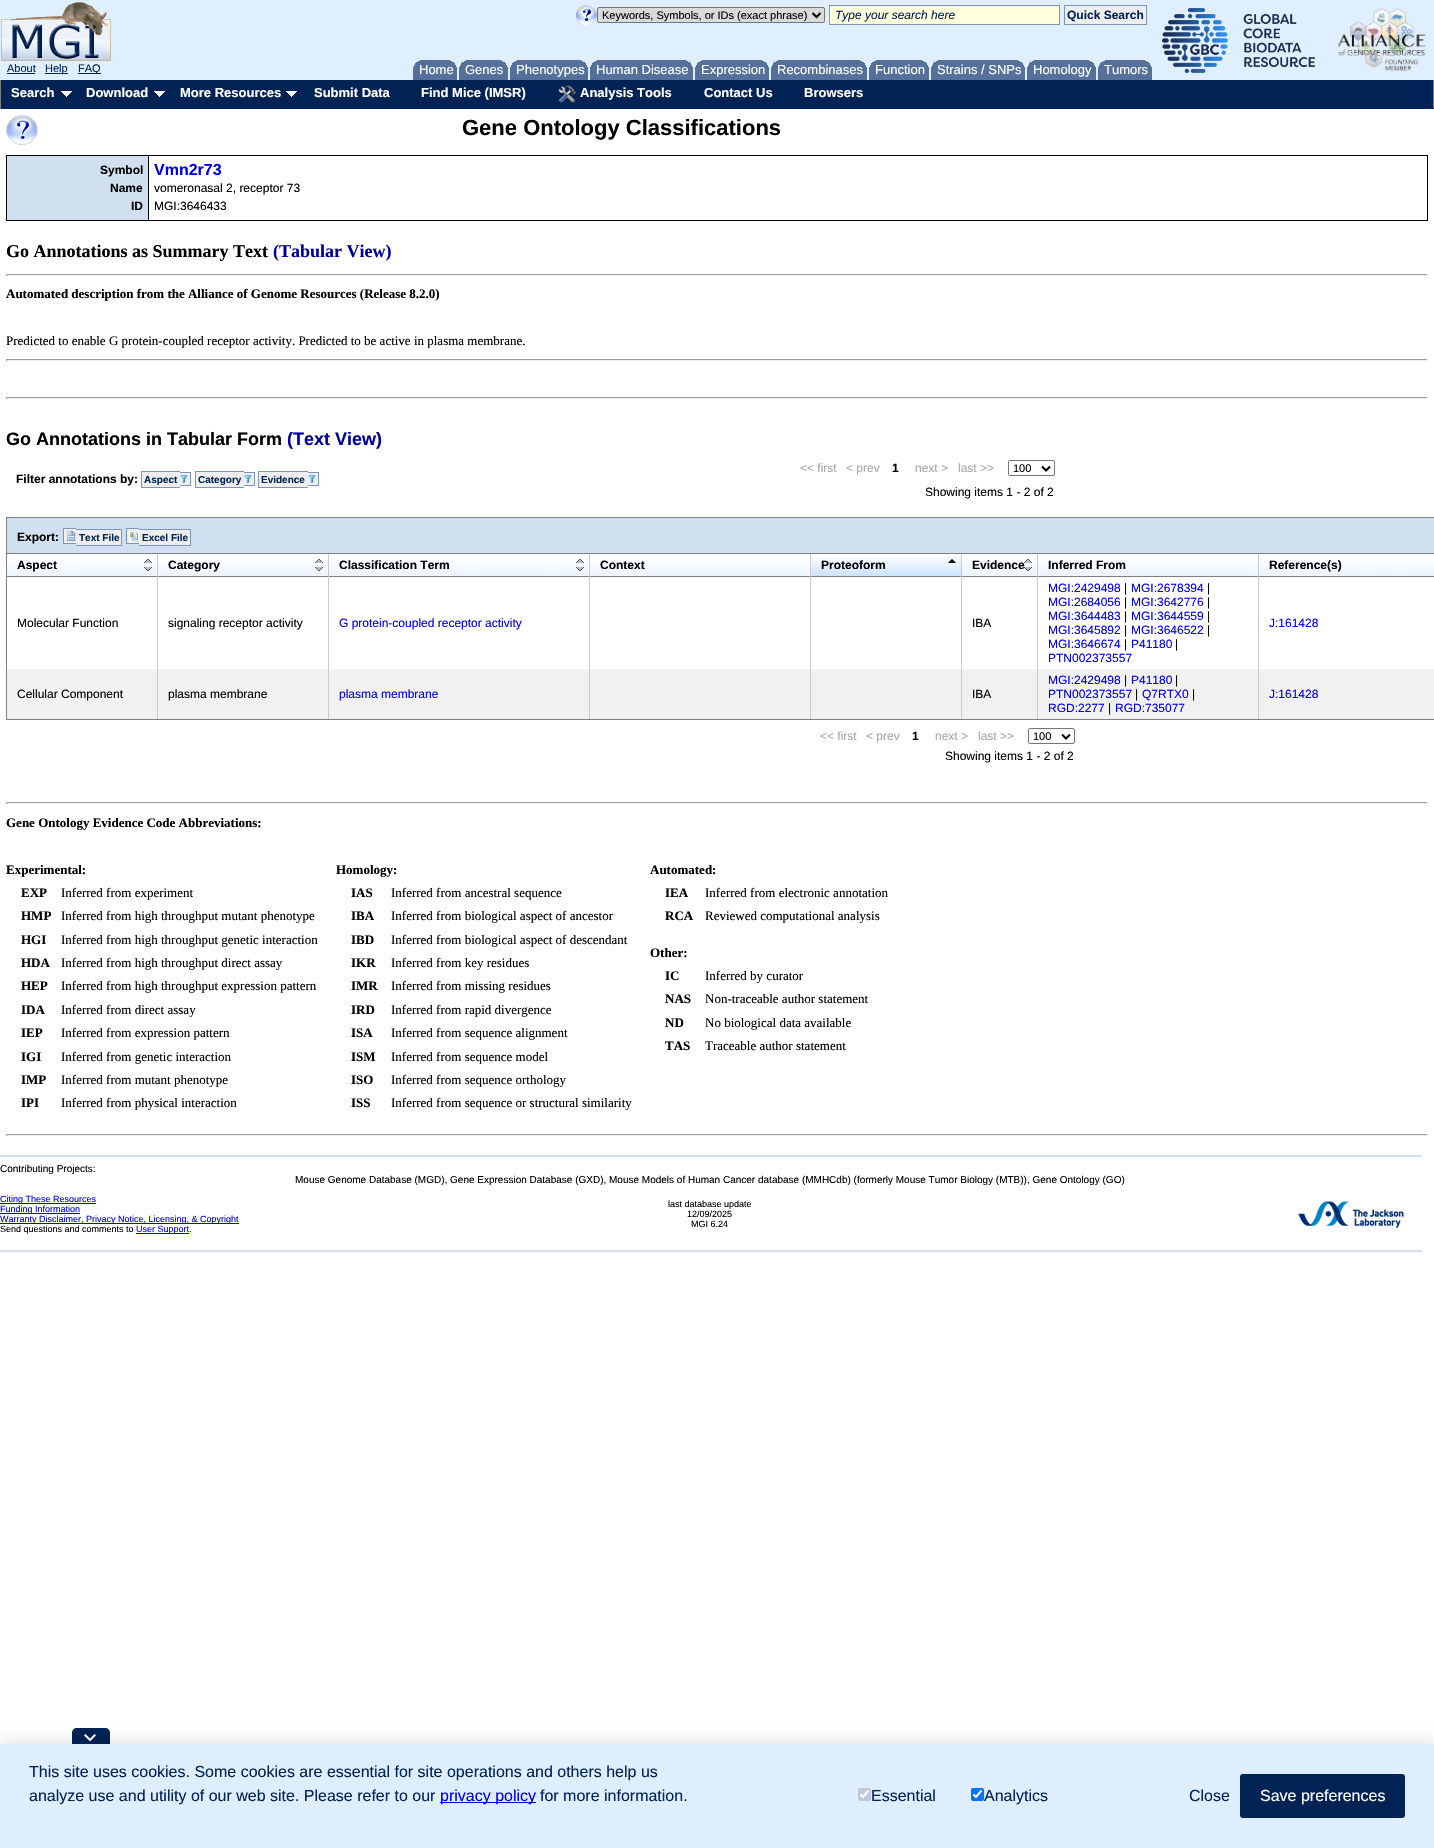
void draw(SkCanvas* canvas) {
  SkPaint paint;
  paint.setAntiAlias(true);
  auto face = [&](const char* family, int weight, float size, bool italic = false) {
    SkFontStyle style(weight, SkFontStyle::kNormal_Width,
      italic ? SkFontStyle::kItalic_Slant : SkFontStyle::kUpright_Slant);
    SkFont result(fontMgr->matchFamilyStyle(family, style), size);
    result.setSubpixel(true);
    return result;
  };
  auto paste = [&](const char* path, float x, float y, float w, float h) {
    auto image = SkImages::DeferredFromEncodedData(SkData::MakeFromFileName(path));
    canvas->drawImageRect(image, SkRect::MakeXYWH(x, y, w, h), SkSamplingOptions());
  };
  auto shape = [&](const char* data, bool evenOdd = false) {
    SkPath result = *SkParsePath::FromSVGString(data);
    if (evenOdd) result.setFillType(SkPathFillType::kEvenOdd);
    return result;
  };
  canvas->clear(0xffffffff);
  paint.setColor(0xffdfefff);
  canvas->drawRect(SkRect::MakeXYWH(0, 0, 1434, 80), paint);
  paste("img/1.png", 576, 5, 21, 20);
  paint.setColor(0xffdadada);
  canvas->drawRoundRect(SkRect::MakeXYWH(597.5f, 7.5f, 227, 15), 1.5f, 1.5f, paint);
  paint.setStroke(true);
  paint.setStrokeWidth(1);
  paint.setColor(0xff767676);
  canvas->drawRoundRect(SkRect::MakeXYWH(597.5f, 7.5f, 227, 15), 1.5f, 1.5f, paint);
  paint.setStrokeWidth(2);
  paint.setColor(0xff000000);
  canvas->drawPath(shape("M812.5 13L816.5 17L820.5 13"), paint);
  paint.setStroke(false);
  paint.setColor(0xffffffdd);
  canvas->drawRect(SkRect::MakeXYWH(829.5f, 5.5f, 230, 19), paint);
  paint.setStroke(true);
  paint.setStrokeWidth(1);
  paint.setColor(0xff7d95b9);
  canvas->drawRect(SkRect::MakeXYWH(829.5f, 5.5f, 230, 19), paint);
  paint.setStroke(false);
  paint.setColor(0xffeeeeee);
  canvas->drawRect(SkRect::MakeXYWH(1064.5f, 5.5f, 82, 19), paint);
  paint.setStroke(true);
  paint.setColor(0xff7d95b9);
  canvas->drawRect(SkRect::MakeXYWH(1064.5f, 5.5f, 82, 19), paint);
  paste("img/2.png", 1162, 8, 153, 65);
  paste("img/3.png", 1337, 8, 89, 64);
  paste("img/4.png", 1, 2, 110, 59);
  paint.setStroke(false);
  {
    const struct { float x, y, w, h; SkColor color; } items[] = {
      {7, 73, 28, 1, 0xff002255},
      {45, 73, 23, 1, 0xff002255},
      {78, 73, 23, 1, 0xff002255},
      {413, 60, 44, 20, 0xff54709b},
    };
    for (auto [x, y, w, h, color] : items) {
      paint.setColor(color);
      canvas->drawRect(SkRect::MakeXYWH(x, y, w, h), paint);
    }
  }
  paste("img/5.png", 413, 60, 7, 7);
  paste("img/6.png", 450, 60, 7, 7);
  canvas->drawRect(SkRect::MakeXYWH(459, 60, 49, 20), paint);
  paste("img/5.png", 459, 60, 7, 7);
  paste("img/6.png", 501, 60, 7, 7);
  canvas->drawRect(SkRect::MakeXYWH(510, 60, 78, 20), paint);
  paste("img/5.png", 510, 60, 7, 7);
  paste("img/6.png", 581, 60, 7, 7);
  canvas->drawRect(SkRect::MakeXYWH(590, 60, 103, 20), paint);
  paste("img/5.png", 590, 60, 7, 7);
  paste("img/6.png", 686, 60, 7, 7);
  canvas->drawRect(SkRect::MakeXYWH(695, 60, 74, 20), paint);
  paste("img/5.png", 695, 60, 7, 7);
  paste("img/6.png", 762, 60, 7, 7);
  canvas->drawRect(SkRect::MakeXYWH(771, 60, 96, 20), paint);
  paste("img/5.png", 771, 60, 7, 7);
  paste("img/6.png", 860, 60, 7, 7);
  canvas->drawRect(SkRect::MakeXYWH(869, 60, 60, 20), paint);
  paste("img/5.png", 869, 60, 7, 7);
  paste("img/6.png", 922, 60, 7, 7);
  canvas->drawRect(SkRect::MakeXYWH(931, 60, 94, 20), paint);
  paste("img/5.png", 931, 60, 7, 7);
  paste("img/6.png", 1018, 60, 7, 7);
  canvas->drawRect(SkRect::MakeXYWH(1027, 60, 69, 20), paint);
  paste("img/5.png", 1027, 60, 7, 7);
  paste("img/6.png", 1089, 60, 7, 7);
  canvas->drawRect(SkRect::MakeXYWH(1098, 60, 54, 20), paint);
  paste("img/5.png", 1098, 60, 7, 7);
  paste("img/6.png", 1145, 60, 7, 7);
  {
    const struct { float x, y, w, h; SkColor color; } items[] = {
      {1, 80, 1432, 28, 0xff002255},
      {1433, 80, 1, 29, 0xff808080},
      {0, 108, 1434, 1, 0xff002255},
      {0, 80, 1, 29, 0xff808080},
    };
    for (auto [x, y, w, h, color] : items) {
      paint.setColor(color);
      canvas->drawRect(SkRect::MakeXYWH(x, y, w, h), paint);
    }
  }
  paste("img/7.png", 61, 91, 11, 6);
  paste("img/7.png", 154, 91, 11, 6);
  paste("img/7.png", 286, 91, 11, 6);
  paste("img/8.png", 558, 85, 18, 18);
  paste("img/9.png", 6, 115, 32, 30);
  {
    const struct { float x, y, w, h; SkColor color; } items[] = {
      {6, 155, 1422, 1, 0xff000000},
      {1427, 155, 1, 66, 0xff000000},
      {6, 220, 1422, 1, 0xff000000},
      {6, 155, 1, 66, 0xff000000},
      {7, 156, 141, 64, 0xffd0e0f0},
      {148, 155, 1, 66, 0xff000000},
      {6, 274, 1422, 1, 0xff9f9f9f},
      {1427, 274, 1, 2, 0xffeeeeee},
      {6, 275, 1422, 1, 0xffeeeeee},
      {6, 274, 1, 2, 0xff9f9f9f},
      {6, 359, 1422, 1, 0xff9f9f9f},
      {1427, 359, 1, 2, 0xffeeeeee},
      {6, 360, 1422, 1, 0xffeeeeee},
      {6, 359, 1, 2, 0xff9f9f9f},
      {6, 397, 1422, 1, 0xff9f9f9f},
      {1427, 397, 1, 2, 0xffeeeeee},
      {6, 398, 1422, 1, 0xffeeeeee},
      {6, 397, 1, 2, 0xff9f9f9f},
      {142, 472, 38, 15, 0xffeeeeee},
      {141, 471, 39, 1, 0xff7d95b9},
      {141, 487, 39, 1, 0xff7d95b9},
      {141, 471, 1, 17, 0xff7d95b9},
      {180, 473, 10, 12, 0xffeeeeee},
      {180, 472, 11, 1, 0xff7d95b9},
      {190, 472, 1, 14, 0xff7d95b9},
      {180, 485, 11, 1, 0xff7d95b9},
    };
    for (auto [x, y, w, h, color] : items) {
      paint.setColor(color);
      canvas->drawRect(SkRect::MakeXYWH(x, y, w, h), paint);
    }
  }
  paste("img/10.png", 180, 475, 8, 8);
  {
    const struct { float x, y, w, h; SkColor color; } items[] = {
      {196, 472, 48, 15, 0xffeeeeee},
      {195, 471, 49, 1, 0xff7d95b9},
      {195, 487, 49, 1, 0xff7d95b9},
      {195, 471, 1, 17, 0xff7d95b9},
      {244, 473, 10, 12, 0xffeeeeee},
      {244, 472, 11, 1, 0xff7d95b9},
      {254, 472, 1, 14, 0xff7d95b9},
      {244, 485, 11, 1, 0xff7d95b9},
    };
    for (auto [x, y, w, h, color] : items) {
      paint.setColor(color);
      canvas->drawRect(SkRect::MakeXYWH(x, y, w, h), paint);
    }
  }
  paste("img/10.png", 244, 475, 8, 8);
  {
    const struct { float x, y, w, h; SkColor color; } items[] = {
      {259, 472, 49, 15, 0xffeeeeee},
      {258, 471, 50, 1, 0xff7d95b9},
      {258, 487, 50, 1, 0xff7d95b9},
      {258, 471, 1, 17, 0xff7d95b9},
      {308, 473, 10, 12, 0xffeeeeee},
      {308, 472, 11, 1, 0xff7d95b9},
      {318, 472, 1, 14, 0xff7d95b9},
      {308, 485, 11, 1, 0xff7d95b9},
    };
    for (auto [x, y, w, h, color] : items) {
      paint.setColor(color);
      canvas->drawRect(SkRect::MakeXYWH(x, y, w, h), paint);
    }
  }
  paste("img/10.png", 308, 475, 8, 8);
  paint.setStroke(true);
  paint.setColor(0xff767676);
  canvas->drawRoundRect(SkRect::MakeXYWH(1008.5f, 460.5f, 46, 15), 1.5f, 1.5f, paint);
  paint.setStrokeWidth(2);
  paint.setColor(0xff000000);
  canvas->drawPath(shape("M1042 466.5L1046 470.5L1050 466.5"), paint);
  paint.setStroke(false);
  {
    const struct { float x, y, w, h; SkColor color; } items[] = {
      {7, 518, 1427, 35, 0xffd0e0f0},
      {6, 517, 1428, 1, 0xff7f7f7f},
      {6, 517, 1, 36, 0xff7f7f7f},
      {64, 529, 12, 14, 0xffeeeeee},
    };
    for (auto [x, y, w, h, color] : items) {
      paint.setColor(color);
      canvas->drawRect(SkRect::MakeXYWH(x, y, w, h), paint);
    }
  }
  paste("img/11.png", 66, 531, 10, 10);
  {
    const struct { float x, y, w, h; SkColor color; } items[] = {
      {63, 528, 13, 1, 0xff7d95b9},
      {63, 543, 13, 1, 0xff7d95b9},
      {63, 528, 1, 16, 0xff7d95b9},
      {76, 530, 45, 15, 0xffeeeeee},
      {76, 529, 46, 1, 0xff7d95b9},
      {121, 529, 1, 17, 0xff7d95b9},
      {76, 545, 46, 1, 0xff7d95b9},
      {127, 529, 12, 14, 0xffeeeeee},
    };
    for (auto [x, y, w, h, color] : items) {
      paint.setColor(color);
      canvas->drawRect(SkRect::MakeXYWH(x, y, w, h), paint);
    }
  }
  paste("img/12.png", 129, 531, 10, 10);
  {
    const struct { float x, y, w, h; SkColor color; } items[] = {
      {126, 528, 13, 1, 0xff7d95b9},
      {126, 543, 13, 1, 0xff7d95b9},
      {126, 528, 1, 16, 0xff7d95b9},
      {139, 530, 51, 15, 0xffeeeeee},
      {139, 529, 52, 1, 0xff7d95b9},
      {190, 529, 1, 17, 0xff7d95b9},
      {139, 545, 52, 1, 0xff7d95b9},
    };
    for (auto [x, y, w, h, color] : items) {
      paint.setColor(color);
      canvas->drawRect(SkRect::MakeXYWH(x, y, w, h), paint);
    }
  }
  paint.setStroke(true);
  paint.setStrokeWidth(1);
  paint.setColor(0xff7f7f7f);
  canvas->drawRect(SkRect::MakeXYWH(6.5f, 553.5f, 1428, 166), paint);
  paste("img/13.png", 7, 560, 150, 16);
  paint.setStroke(false);
  paint.setColor(0xffcbcbcb);
  canvas->drawRect(SkRect::MakeXYWH(157, 554, 1, 22), paint);
  paste("img/14.png", 144, 559, 8, 12);
  paste("img/15.png", 158, 560, 170, 16);
  canvas->drawRect(SkRect::MakeXYWH(328, 554, 1, 22), paint);
  paste("img/16.png", 315, 559, 8, 12);
  paste("img/17.png", 329, 560, 260, 16);
  canvas->drawRect(SkRect::MakeXYWH(589, 554, 1, 22), paint);
  paste("img/18.png", 576, 559, 8, 12);
  paste("img/19.png", 590, 560, 220, 16);
  canvas->drawRect(SkRect::MakeXYWH(810, 554, 1, 22), paint);
  paste("img/20.png", 811, 557, 150, 19);
  canvas->drawRect(SkRect::MakeXYWH(961, 554, 1, 22), paint);
  paste("img/21.png", 948, 559, 8, 4);
  paste("img/22.png", 962, 560, 75, 16);
  canvas->drawRect(SkRect::MakeXYWH(1037, 554, 1, 22), paint);
  paste("img/23.png", 1024, 559, 8, 12);
  paste("img/19.png", 1038, 560, 220, 16);
  canvas->drawRect(SkRect::MakeXYWH(1258, 554, 1, 22), paint);
  paste("img/24.png", 1259, 560, 175, 16);
  {
    const struct { float x, y, w, h; SkColor color; } items[] = {
      {7, 576, 1427, 1, 0xff7f7f7f},
      {157, 576, 1, 93, 0xffcbcbcb},
      {328, 576, 1, 93, 0xffcbcbcb},
      {589, 576, 1, 93, 0xffcbcbcb},
      {810, 576, 1, 93, 0xffcbcbcb},
      {961, 576, 1, 93, 0xffcbcbcb},
      {1037, 576, 1, 93, 0xffcbcbcb},
      {1258, 576, 1, 93, 0xffcbcbcb},
      {7, 669, 1427, 50, 0xfff1f1f1},
      {157, 669, 1, 50, 0xffcbcbcb},
      {328, 669, 1, 50, 0xffcbcbcb},
      {589, 669, 1, 50, 0xffcbcbcb},
      {810, 669, 1, 50, 0xffcbcbcb},
      {961, 669, 1, 50, 0xffcbcbcb},
      {1037, 669, 1, 50, 0xffcbcbcb},
      {1258, 669, 1, 50, 0xffcbcbcb},
    };
    for (auto [x, y, w, h, color] : items) {
      paint.setColor(color);
      canvas->drawRect(SkRect::MakeXYWH(x, y, w, h), paint);
    }
  }
  paint.setStroke(true);
  paint.setColor(0xff767676);
  canvas->drawRoundRect(SkRect::MakeXYWH(1028.5f, 728.5f, 46, 15), 1.5f, 1.5f, paint);
  paint.setStrokeWidth(2);
  paint.setColor(0xff000000);
  canvas->drawPath(shape("M1062 734.5L1066 738.5L1070 734.5"), paint);
  paint.setStroke(false);
  {
    const struct { float x, y, w, h; SkColor color; } items[] = {
      {6, 802, 1422, 1, 0xff9f9f9f},
      {1427, 802, 1, 2, 0xffeeeeee},
      {6, 803, 1422, 1, 0xffeeeeee},
      {6, 802, 1, 2, 0xff9f9f9f},
      {6, 1134, 1422, 1, 0xff9f9f9f},
      {1427, 1134, 1, 2, 0xffeeeeee},
      {6, 1135, 1422, 1, 0xffeeeeee},
      {6, 1134, 1, 2, 0xff9f9f9f},
      {0, 1155, 1422, 2, 0xffd0e0f0},
      {0, 1203, 96, 1, 0xff0000ee},
      {0, 1213, 80, 1, 0xff0000ee},
      {0, 1223, 239, 1, 0xff0000ee},
      {136, 1233, 53, 1, 0xff0000ee},
    };
    for (auto [x, y, w, h, color] : items) {
      paint.setColor(color);
      canvas->drawRect(SkRect::MakeXYWH(x, y, w, h), paint);
    }
  }
  paste("img/25.png", 1298, 1201, 106, 27);
  paint.setColor(0xffd0e0f0);
  canvas->drawRect(SkRect::MakeXYWH(0, 1250, 1422, 2), paint);
  paint.setColor(0xff002255);
  canvas->drawPath(shape("M77 1728H105C108 1728 110 1730 110 1733V1744H72V1733C72 1730 74 1728 77 1728Z"), paint);
  paint.setColor(0x26000000);
  paint.setMaskFilter(SkMaskFilter::MakeBlur(kNormal_SkBlurStyle, 8));
  canvas->drawRect(SkRect::MakeXYWH(0, 1744, 1434, 104), paint);
  paint.setMaskFilter(nullptr);
  paste("img/26.png", 84, 1734, 12, 8);
  paint.setColor(0xffdeeeff);
  canvas->drawRect(SkRect::MakeXYWH(0, 1744, 1434, 104), paint);
  paint.setColor(0xff0000ee);
  canvas->drawRect(SkRect::MakeXYWH(440, 1802, 96, 1), paint);
  paint.setColor(0xffbfcad6);
  canvas->drawRoundRect(SkRect::MakeXYWH(858, 1788, 13, 13), 2, 2, paint);
  paint.setStroke(true);
  paint.setStrokeWidth(2.1f);
  paint.setColor(0xffffffff);
  canvas->drawPath(shape("M860.5 1794.5L863 1797L868.5 1790.5"), paint);
  paint.setStroke(false);
  paint.setColor(0xff0075ff);
  canvas->drawRoundRect(SkRect::MakeXYWH(971, 1788, 13, 13), 2, 2, paint);
  paint.setStroke(true);
  paint.setColor(0xffffffff);
  canvas->drawPath(shape("M973.5 1794.5L976 1797L981.5 1790.5"), paint);
  paint.setStroke(false);
  paint.setColor(0xff002255);
  canvas->drawRoundRect(SkRect::MakeXYWH(1240, 1774, 165, 44), 3, 3, paint);
  auto f0 = face("Liberation Sans", 400, 11);
  paint.setColor(0xff000001);
  canvas->drawString("Keywords, Symbols, or IDs (exact phrase)", 602, 19, f0, paint);
  auto f1 = face("Liberation Sans", 400, 12, true);
  paint.setColor(0xff002255);
  canvas->drawString("Type your search here", 835, 19, f1, paint);
  auto f2 = face("Liberation Sans", 700, 12);
  canvas->drawString("Quick Search", 1067, 19, f2, paint);
  {
    const struct { const char* s; float x, y; } items[] = {
      {"About", 7, 72},
      {"Help", 45, 72},
      {"FAQ", 78, 72},
    };
    for (auto [s, x, y] : items) {
      canvas->drawString(s, x, y, f0, paint);
    }
  }
  auto f3 = face("Liberation Sans", 400, 13);
  paint.setColor(0xffffffff);
  {
    const struct { const char* s; float x, y; } items[] = {
      {"Home", 419, 74},
      {"Genes", 465, 74},
      {"Phenotypes", 516, 74},
      {"Human Disease", 596, 74},
      {"Expression", 701, 74},
      {"Recombinases", 777, 74},
      {"Function", 875, 74},
      {"Strains / SNPs", 937, 74},
      {"Homology", 1033, 74},
      {"Tumors", 1104, 74},
    };
    for (auto [s, x, y] : items) {
      canvas->drawString(s, x, y, f3, paint);
    }
  }
  auto f4 = face("Liberation Sans", 700, 13);
  {
    const struct { const char* s; float x, y; } items[] = {
      {"Search", 11, 97},
      {"Download", 86, 97},
      {"More Resources", 180, 97},
      {"Submit Data", 314, 97},
      {"Find Mice (IMSR)", 421, 97},
      {"Analysis Tools", 580, 97},
      {"Contact Us", 704, 97},
      {"Browsers", 804, 97},
    };
    for (auto [s, x, y] : items) {
      canvas->drawString(s, x, y, f4, paint);
    }
  }
  auto f5 = face("Liberation Sans", 700, 22);
  paint.setColor(0xff000001);
  canvas->drawString("Gene Ontology Classifications", 462, 135, f5, paint);
  {
    const struct { const char* s; float x, y; } items[] = {
      {"Symbol", 100, 174},
      {"Name", 110, 192},
      {"ID", 131, 210},
    };
    for (auto [s, x, y] : items) {
      canvas->drawString(s, x, y, f2, paint);
    }
  }
  auto f6 = face("Liberation Sans", 700, 16);
  paint.setColor(0xff0000ee);
  canvas->drawString("Vmn2r73", 154, 175, f6, paint);
  auto f7 = face("Liberation Sans", 400, 12);
  paint.setColor(0xff000001);
  canvas->drawString("vomeronasal 2, receptor 73", 154, 192, f7, paint);
  canvas->drawString("MGI:3646433", 154, 210, f7, paint);
  auto f8 = face("Liberation Serif", 700, 18);
  canvas->drawString("Go Annotations as Summary Text", 6, 257, f8, paint);
  paint.setColor(0xff000099);
  canvas->drawString("(Tabular View)", 273, 257, f8, paint);
  auto f9 = face("Liberation Serif", 700, 13);
  paint.setColor(0xff000001);
  canvas->drawString("Automated description from the Alliance of Genome Resources (Release 8.2.0)", 6, 298, f9, paint);
  auto f10 = face("Liberation Serif", 400, 13);
  canvas->drawString("Predicted to enable G protein-coupled receptor activity. Predicted to be active in plasma membrane.", 6, 345, f10, paint);
  auto f11 = face("Liberation Sans", 700, 18);
  canvas->drawString("Go Annotations in Tabular Form", 6, 445, f11, paint);
  paint.setColor(0xff000099);
  canvas->drawString("(Text View)", 287, 445, f11, paint);
  paint.setColor(0xff000001);
  canvas->drawString("Filter annotations by:", 16, 483, f2, paint);
  auto f12 = face("Liberation Sans", 700, 10);
  paint.setColor(0xff002255);
  {
    const struct { const char* s; float x, y; } items[] = {
      {"Aspect", 144, 483},
      {"Category", 198, 483},
      {"Evidence", 261, 483},
    };
    for (auto [s, x, y] : items) {
      canvas->drawString(s, x, y, f12, paint);
    }
  }
  paint.setColor(0xffa6a6a6);
  canvas->drawString("<< first", 800, 472, f7, paint);
  canvas->drawString("< prev", 846, 472, f7, paint);
  paint.setColor(0xff000001);
  canvas->drawString("1", 892, 472, f2, paint);
  paint.setColor(0xffa6a6a6);
  canvas->drawString("next >", 915, 472, f7, paint);
  canvas->drawString("last >>", 958, 472, f7, paint);
  paint.setColor(0xff000001);
  canvas->drawString("100", 1013, 472, f0, paint);
  canvas->drawString("Showing items 1 - 2 of 2", 925, 496, f7, paint);
  canvas->drawString("Export:", 17, 541, f2, paint);
  paint.setColor(0xff002255);
  canvas->drawString("Text File", 79, 541, f12, paint);
  canvas->drawString("Excel File", 142, 541, f12, paint);
  paint.setColor(0xff000001);
  {
    const struct { const char* s; float x, y; } items[] = {
      {"Aspect", 17, 569},
      {"Category", 168, 569},
      {"Classification Term", 339, 569},
      {"Context", 600, 569},
      {"Proteoform", 821, 569},
      {"Evidence", 972, 569},
      {"Inferred From", 1048, 569},
      {"Reference(s)", 1269, 569},
    };
    for (auto [s, x, y] : items) {
      canvas->drawString(s, x, y, f2, paint);
    }
  }
  canvas->drawString("Molecular Function", 17, 627, f7, paint);
  canvas->drawString("signaling receptor activity", 168, 627, f7, paint);
  paint.setColor(0xff0000ee);
  canvas->drawString("G protein-coupled receptor activity", 339, 627, f7, paint);
  paint.setColor(0xff000001);
  canvas->drawString("IBA", 972, 627, f7, paint);
  paint.setColor(0xff0000ee);
  canvas->drawString("MGI:2429498", 1048, 592, f7, paint);
  paint.setColor(0xff000001);
  canvas->drawString("|", 1124, 592, f7, paint);
  paint.setColor(0xff0000ee);
  canvas->drawString("MGI:2678394", 1131, 592, f7, paint);
  paint.setColor(0xff000001);
  canvas->drawString("|", 1207, 592, f7, paint);
  paint.setColor(0xff0000ee);
  canvas->drawString("MGI:2684056", 1048, 606, f7, paint);
  paint.setColor(0xff000001);
  canvas->drawString("|", 1124, 606, f7, paint);
  paint.setColor(0xff0000ee);
  canvas->drawString("MGI:3642776", 1131, 606, f7, paint);
  paint.setColor(0xff000001);
  canvas->drawString("|", 1207, 606, f7, paint);
  paint.setColor(0xff0000ee);
  canvas->drawString("MGI:3644483", 1048, 620, f7, paint);
  paint.setColor(0xff000001);
  canvas->drawString("|", 1124, 620, f7, paint);
  paint.setColor(0xff0000ee);
  canvas->drawString("MGI:3644559", 1131, 620, f7, paint);
  paint.setColor(0xff000001);
  canvas->drawString("|", 1207, 620, f7, paint);
  paint.setColor(0xff0000ee);
  canvas->drawString("MGI:3645892", 1048, 634, f7, paint);
  paint.setColor(0xff000001);
  canvas->drawString("|", 1124, 634, f7, paint);
  paint.setColor(0xff0000ee);
  canvas->drawString("MGI:3646522", 1131, 634, f7, paint);
  paint.setColor(0xff000001);
  canvas->drawString("|", 1207, 634, f7, paint);
  paint.setColor(0xff0000ee);
  canvas->drawString("MGI:3646674", 1048, 648, f7, paint);
  paint.setColor(0xff000001);
  canvas->drawString("|", 1124, 648, f7, paint);
  paint.setColor(0xff0000ee);
  canvas->drawString("P41180", 1131, 648, f7, paint);
  paint.setColor(0xff000001);
  canvas->drawString("|", 1175, 648, f7, paint);
  paint.setColor(0xff0000ee);
  canvas->drawString("PTN002373557", 1048, 662, f7, paint);
  canvas->drawString("J:161428", 1269, 627, f7, paint);
  paint.setColor(0xff000001);
  canvas->drawString("Cellular Component", 17, 698, f7, paint);
  canvas->drawString("plasma membrane", 168, 698, f7, paint);
  paint.setColor(0xff0000ee);
  canvas->drawString("plasma membrane", 339, 698, f7, paint);
  paint.setColor(0xff000001);
  canvas->drawString("IBA", 972, 698, f7, paint);
  paint.setColor(0xff0000ee);
  canvas->drawString("MGI:2429498", 1048, 684, f7, paint);
  paint.setColor(0xff000001);
  canvas->drawString("|", 1124, 684, f7, paint);
  paint.setColor(0xff0000ee);
  canvas->drawString("P41180", 1131, 684, f7, paint);
  paint.setColor(0xff000001);
  canvas->drawString("|", 1175, 684, f7, paint);
  paint.setColor(0xff0000ee);
  canvas->drawString("PTN002373557", 1048, 698, f7, paint);
  paint.setColor(0xff000001);
  canvas->drawString("|", 1135, 698, f7, paint);
  paint.setColor(0xff0000ee);
  canvas->drawString("Q7RTX0", 1142, 698, f7, paint);
  paint.setColor(0xff000001);
  canvas->drawString("|", 1192, 698, f7, paint);
  paint.setColor(0xff0000ee);
  canvas->drawString("RGD:2277", 1048, 712, f7, paint);
  paint.setColor(0xff000001);
  canvas->drawString("|", 1108, 712, f7, paint);
  paint.setColor(0xff0000ee);
  canvas->drawString("RGD:735077", 1115, 712, f7, paint);
  canvas->drawString("J:161428", 1269, 698, f7, paint);
  paint.setColor(0xffa6a6a6);
  canvas->drawString("<< first", 820, 740, f7, paint);
  canvas->drawString("< prev", 866, 740, f7, paint);
  paint.setColor(0xff000001);
  canvas->drawString("1", 912, 740, f2, paint);
  paint.setColor(0xffa6a6a6);
  canvas->drawString("next >", 935, 740, f7, paint);
  canvas->drawString("last >>", 978, 740, f7, paint);
  paint.setColor(0xff000001);
  canvas->drawString("100", 1033, 740, f0, paint);
  canvas->drawString("Showing items 1 - 2 of 2", 945, 760, f7, paint);
  {
    const struct { const char* s; float x, y; } items[] = {
      {"Gene Ontology Evidence Code Abbreviations:", 6, 827},
      {"Experimental:", 6, 874},
      {"EXP", 21, 897},
    };
    for (auto [s, x, y] : items) {
      canvas->drawString(s, x, y, f9, paint);
    }
  }
  canvas->drawString("Inferred from experiment", 61, 897, f10, paint);
  canvas->drawString("HMP", 21, 920, f9, paint);
  canvas->drawString("Inferred from high throughput mutant phenotype", 61, 920, f10, paint);
  canvas->drawString("HGI", 21, 944, f9, paint);
  canvas->drawString("Inferred from high throughput genetic interaction", 61, 944, f10, paint);
  canvas->drawString("HDA", 21, 967, f9, paint);
  canvas->drawString("Inferred from high throughput direct assay", 61, 967, f10, paint);
  canvas->drawString("HEP", 21, 990, f9, paint);
  canvas->drawString("Inferred from high throughput expression pattern", 61, 990, f10, paint);
  canvas->drawString("IDA", 21, 1014, f9, paint);
  canvas->drawString("Inferred from direct assay", 61, 1014, f10, paint);
  canvas->drawString("IEP", 21, 1037, f9, paint);
  canvas->drawString("Inferred from expression pattern", 61, 1037, f10, paint);
  canvas->drawString("IGI", 21, 1061, f9, paint);
  canvas->drawString("Inferred from genetic interaction", 61, 1061, f10, paint);
  canvas->drawString("IMP", 21, 1084, f9, paint);
  canvas->drawString("Inferred from mutant phenotype", 61, 1084, f10, paint);
  canvas->drawString("IPI", 21, 1107, f9, paint);
  canvas->drawString("Inferred from physical interaction", 61, 1107, f10, paint);
  canvas->drawString("Homology:", 336, 874, f9, paint);
  canvas->drawString("IAS", 351, 897, f9, paint);
  canvas->drawString("Inferred from ancestral sequence", 391, 897, f10, paint);
  canvas->drawString("IBA", 351, 920, f9, paint);
  canvas->drawString("Inferred from biological aspect of ancestor", 391, 920, f10, paint);
  canvas->drawString("IBD", 351, 944, f9, paint);
  canvas->drawString("Inferred from biological aspect of descendant", 391, 944, f10, paint);
  canvas->drawString("IKR", 351, 967, f9, paint);
  canvas->drawString("Inferred from key residues", 391, 967, f10, paint);
  canvas->drawString("IMR", 351, 990, f9, paint);
  canvas->drawString("Inferred from missing residues", 391, 990, f10, paint);
  canvas->drawString("IRD", 351, 1014, f9, paint);
  canvas->drawString("Inferred from rapid divergence", 391, 1014, f10, paint);
  canvas->drawString("ISA", 351, 1037, f9, paint);
  canvas->drawString("Inferred from sequence alignment", 391, 1037, f10, paint);
  canvas->drawString("ISM", 351, 1061, f9, paint);
  canvas->drawString("Inferred from sequence model", 391, 1061, f10, paint);
  canvas->drawString("ISO", 351, 1084, f9, paint);
  canvas->drawString("Inferred from sequence orthology", 391, 1084, f10, paint);
  canvas->drawString("ISS", 351, 1107, f9, paint);
  canvas->drawString("Inferred from sequence or structural similarity", 391, 1107, f10, paint);
  canvas->drawString("Automated:", 650, 874, f9, paint);
  canvas->drawString("IEA", 665, 897, f9, paint);
  canvas->drawString("Inferred from electronic annotation", 705, 897, f10, paint);
  canvas->drawString("RCA", 665, 920, f9, paint);
  canvas->drawString("Reviewed computational analysis", 705, 920, f10, paint);
  canvas->drawString("Other:", 650, 957, f9, paint);
  canvas->drawString("IC", 665, 980, f9, paint);
  canvas->drawString("Inferred by curator", 705, 980, f10, paint);
  canvas->drawString("NAS", 665, 1003, f9, paint);
  canvas->drawString("Non-traceable author statement", 705, 1003, f10, paint);
  canvas->drawString("ND", 665, 1027, f9, paint);
  canvas->drawString("No biological data available", 705, 1027, f10, paint);
  canvas->drawString("TAS", 665, 1050, f9, paint);
  canvas->drawString("Traceable author statement", 705, 1050, f10, paint);
  auto f13 = face("Liberation Sans", 400, 10);
  canvas->drawString("Contributing Projects:", 0, 1172, f13, paint);
  canvas->drawString("Mouse Genome Database (MGD), Gene Expression Database (GXD), Mouse Models of Human Cancer database (MMHCdb) (formerly Mouse Tumor Biology (MTB)), Gene Ontology (GO)", 295, 1183, f13, paint);
  auto f14 = face("Liberation Sans", 400, 9);
  paint.setColor(0xff0000ee);
  {
    const struct { const char* s; float x, y; } items[] = {
      {"Citing These Resources", 0, 1202},
      {"Funding Information", 0, 1212},
      {"Warranty Disclaimer, Privacy Notice, Licensing, & Copyright", 0, 1222},
    };
    for (auto [s, x, y] : items) {
      canvas->drawString(s, x, y, f14, paint);
    }
  }
  paint.setColor(0xff000001);
  canvas->drawString("Send questions and comments to", 0, 1232, f14, paint);
  paint.setColor(0xff0000ee);
  canvas->drawString("User Support", 136, 1232, f14, paint);
  paint.setColor(0xff000001);
  {
    const struct { const char* s; float x, y; } items[] = {
      {".", 189, 1232},
      {"last database update", 668, 1207},
      {"12/09/2025", 687, 1217},
      {"MGI 6.24", 691, 1227},
    };
    for (auto [s, x, y] : items) {
      canvas->drawString(s, x, y, f14, paint);
    }
  }
  auto f15 = face("Liberation Sans", 400, 16);
  paint.setColor(0xff002255);
  canvas->drawString("This site uses cookies. Some cookies are essential for site operations and others help us", 29, 1777, f15, paint);
  canvas->drawString("analyze use and utility of our web site. Please refer to our", 29, 1801, f15, paint);
  paint.setColor(0xff0000ee);
  canvas->drawString("privacy policy", 440, 1801, f15, paint);
  paint.setColor(0xff002255);
  {
    const struct { const char* s; float x, y; } items[] = {
      {"for more information.", 540, 1801},
      {"Essential", 871, 1801},
      {"Analytics", 984, 1801},
      {"Close", 1189, 1801},
    };
    for (auto [s, x, y] : items) {
      canvas->drawString(s, x, y, f15, paint);
    }
  }
  paint.setColor(0xffffffff);
  canvas->drawString("Save preferences", 1260, 1801, f15, paint);
}
